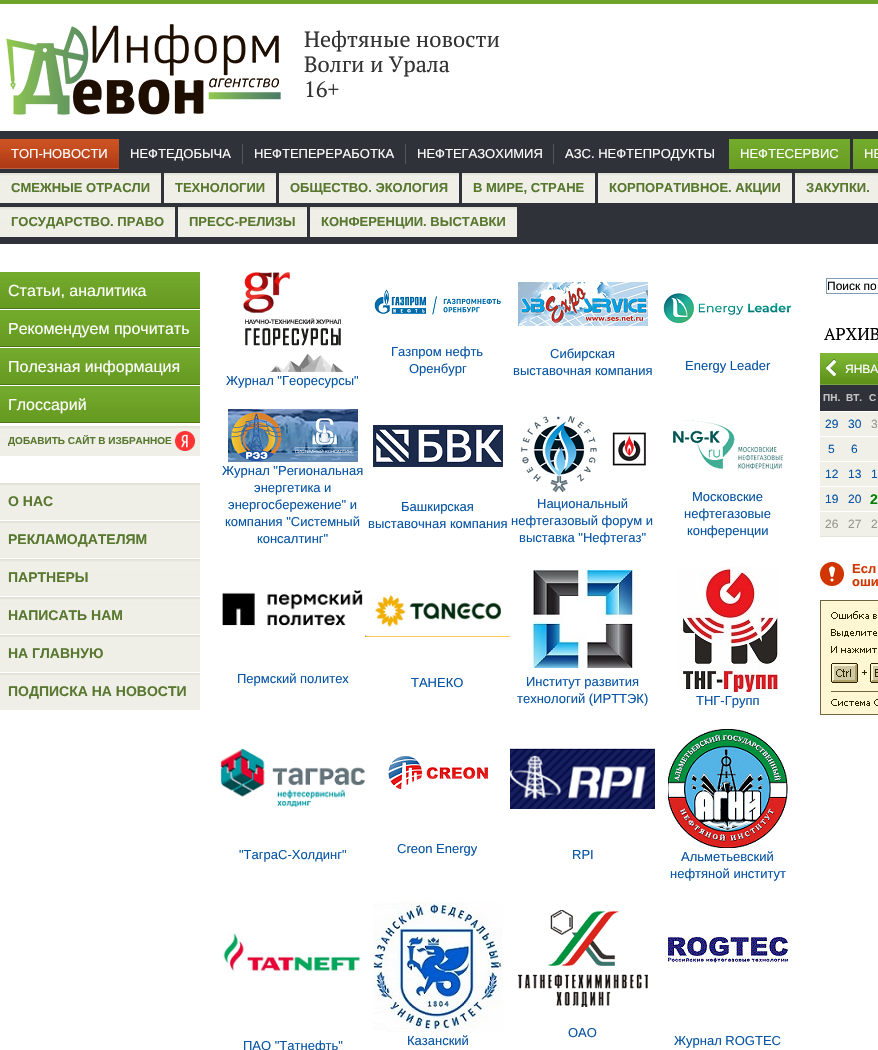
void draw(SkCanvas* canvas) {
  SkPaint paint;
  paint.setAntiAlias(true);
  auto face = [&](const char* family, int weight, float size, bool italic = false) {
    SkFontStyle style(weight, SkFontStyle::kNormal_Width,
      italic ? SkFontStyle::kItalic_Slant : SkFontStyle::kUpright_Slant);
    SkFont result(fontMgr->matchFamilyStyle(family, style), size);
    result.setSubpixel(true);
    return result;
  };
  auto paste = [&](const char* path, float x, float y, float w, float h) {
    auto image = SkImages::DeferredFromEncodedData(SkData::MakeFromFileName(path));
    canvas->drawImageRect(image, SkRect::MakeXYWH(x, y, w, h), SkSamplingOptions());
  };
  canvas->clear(0xffffffff);
  paint.setColor(0xff6ea427);
  canvas->drawRect(SkRect::MakeXYWH(0, 0, 878, 4), paint);
  paste("img/1.png", 6, 24, 275, 91);
  paint.setColor(0xff2f3339);
  canvas->drawRect(SkRect::MakeXYWH(0, 131, 878, 113), paint);
  paste("img/2.png", 0, 139, 119, 30);
  {
    const struct { float x, y, w, h; SkColor color; } items[] = {
      {242, 144, 1, 20, 0xff545658},
      {405, 144, 1, 20, 0xff545658},
      {553, 144, 1, 20, 0xff545658},
    };
    for (auto [x, y, w, h, color] : items) {
      paint.setColor(color);
      canvas->drawRect(SkRect::MakeXYWH(x, y, w, h), paint);
    }
  }
  paste("img/3.png", 729, 139, 121, 30);
  paste("img/4.png", 853, 139, 25, 30);
  paste("img/5.png", 0, 173, 161, 30);
  paste("img/6.png", 164, 173, 112, 30);
  paste("img/7.png", 279, 173, 180, 30);
  paste("img/8.png", 462, 173, 133, 30);
  paste("img/9.png", 598, 173, 194, 30);
  paste("img/10.png", 795, 173, 83, 30);
  paste("img/11.png", 0, 207, 175, 30);
  paste("img/12.png", 178, 207, 129, 30);
  paste("img/13.png", 310, 207, 207, 30);
  paste("img/14.png", 0, 272, 200, 37);
  paste("img/14.png", 0, 310, 200, 37);
  paste("img/14.png", 0, 348, 200, 37);
  paste("img/14.png", 0, 386, 200, 37);
  paste("img/15.png", 0, 426, 200, 30);
  paste("img/16.png", 175, 431, 20, 20);
  paste("img/17.png", 0, 483, 200, 37);
  paste("img/17.png", 0, 521, 200, 37);
  paste("img/17.png", 0, 559, 200, 37);
  paste("img/17.png", 0, 597, 200, 37);
  paste("img/17.png", 0, 635, 200, 37);
  paste("img/17.png", 0, 673, 200, 37);
  paste("img/18.png", 374, 289, 127, 26);
  paste("img/19.png", 518, 282, 130, 44);
  paste("img/20.png", 663, 293, 129, 31);
  paste("img/21.png", 243, 272, 100, 100);
  paste("img/22.png", 228, 409, 130, 53);
  paste("img/23.png", 373, 425, 130, 42);
  paste("img/24.png", 521, 415, 125, 77);
  paste("img/25.png", 673, 420, 110, 50);
  paste("img/26.png", 222, 590, 141, 36);
  paste("img/27.png", 365, 595, 145, 42);
  paste("img/28.png", 533, 570, 100, 98);
  paste("img/29.png", 678, 567, 100, 125);
  paste("img/30.png", 220, 748, 145, 59);
  paste("img/31.png", 388, 755, 100, 35);
  paste("img/32.png", 510, 748, 145, 61);
  paste("img/33.png", 668, 729, 120, 119);
  paste("img/34.png", 518, 910, 130, 97);
  paste("img/35.png", 221, 932, 140, 42);
  paste("img/36.png", 373, 902, 130, 130);
  paste("img/37.png", 668, 937, 120, 26);
  paint.setStroke(true);
  paint.setStrokeWidth(1);
  paint.setColor(0xff7f9db9);
  canvas->drawRect(SkRect::MakeXYWH(826.5f, 278.5f, 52, 15), paint);
  paste("img/38.png", 820, 353, 58, 32);
  paste("img/39.png", 826, 359, 10, 17);
  paint.setStroke(false);
  {
    const struct { float x, y, w, h; SkColor color; } items[] = {
      {820, 385, 58, 26, 0xff2f3339},
      {820, 412, 58, 24, 0xfff0efe8},
      {820, 437, 58, 24, 0xfff0efe8},
      {820, 462, 58, 24, 0xfff0efe8},
      {820, 487, 58, 24, 0xfff0efe8},
      {820, 512, 58, 24, 0xfff0efe8},
      {820, 536, 58, 1, 0xffe4e3dc},
    };
    for (auto [x, y, w, h, color] : items) {
      paint.setColor(color);
      canvas->drawRect(SkRect::MakeXYWH(x, y, w, h), paint);
    }
  }
  paste("img/40.png", 820, 562, 24, 24);
  paste("img/41.png", 820, 600, 58, 115);
  auto f0 = face("PT Serif", 400, 22);
  paint.setColor(0xff333333);
  {
    const struct { const char* s; float x, y; } items[] = {
      {"Нефтяные новости", 304, 47},
      {"Волги и Урала", 304, 72},
      {"16+", 304, 97},
    };
    for (auto [s, x, y] : items) {
      canvas->drawString(s, x, y, f0, paint);
    }
  }
  auto f1 = face("Liberation Sans", 400, 13);
  paint.setColor(0xffffffff);
  {
    const struct { const char* s; float x, y; } items[] = {
      {"ТОП-НОВОСТИ", 11, 158},
      {"НЕФТЕДОБЫЧА", 130, 158},
      {"НЕФТЕПЕРЕРАБОТКА", 254, 158},
      {"НЕФТЕГАЗОХИМИЯ", 417, 158},
      {"АЗС. НЕФТЕПРОДУКТЫ", 565, 158},
      {"НЕФТЕСЕРВИС", 740, 158},
      {"НЕ", 864, 158},
    };
    for (auto [s, x, y] : items) {
      canvas->drawString(s, x, y, f1, paint);
    }
  }
  auto f2 = face("Liberation Sans", 700, 13);
  paint.setColor(0xff58782f);
  {
    const struct { const char* s; float x, y; } items[] = {
      {"СМЕЖНЫЕ ОТРАСЛИ", 11, 192},
      {"ТЕХНОЛОГИИ", 175, 192},
      {"ОБЩЕСТВО. ЭКОЛОГИЯ", 290, 192},
      {"В МИРЕ, СТРАНЕ", 473, 192},
      {"КОРПОРАТИВНОЕ. АКЦИИ", 609, 192},
      {"ЗАКУПКИ.", 806, 192},
      {"ГОСУДАРСТВО. ПРАВО", 11, 226},
      {"ПРЕСС-РЕЛИЗЫ", 189, 226},
      {"КОНФЕРЕНЦИИ. ВЫСТАВКИ", 321, 226},
    };
    for (auto [s, x, y] : items) {
      canvas->drawString(s, x, y, f2, paint);
    }
  }
  auto f3 = face("Liberation Sans", 400, 16);
  paint.setColor(0xffffffff);
  {
    const struct { const char* s; float x, y; } items[] = {
      {"Статьи, аналитика", 8, 296},
      {"Рекомендуем прочитать", 8, 334},
      {"Полезная информация", 8, 372},
      {"Глоссарий", 8, 410},
    };
    for (auto [s, x, y] : items) {
      canvas->drawString(s, x, y, f3, paint);
    }
  }
  auto f4 = face("Liberation Sans", 700, 10);
  paint.setColor(0xff58782f);
  canvas->drawString("ДОБАВИТЬ САЙТ В ИЗБРАННОЕ", 8, 444, f4, paint);
  auto f5 = face("Liberation Sans", 700, 14);
  {
    const struct { const char* s; float x, y; } items[] = {
      {"О НАС", 8, 506},
      {"РЕКЛАМОДАТЕЛЯМ", 8, 544},
      {"ПАРТНЕРЫ", 8, 582},
      {"НАПИСАТЬ НАМ", 8, 620},
      {"НА ГЛАВНУЮ", 8, 658},
      {"ПОДПИСКА НА НОВОСТИ", 8, 696},
    };
    for (auto [s, x, y] : items) {
      canvas->drawString(s, x, y, f5, paint);
    }
  }
  paint.setColor(0xff0553a4);
  {
    const struct { const char* s; float x, y; } items[] = {
      {"Газпром нефть", 391, 356},
      {"Оренбург", 409, 373},
      {"Сибирская", 550, 358},
      {"выставочная компания", 513, 375},
      {"Energy Leader", 685, 370},
      {"Журнал \"Георесурсы\"", 226, 385},
      {"Журнал \"Региональная", 222, 475},
      {"энергетика и", 254, 492},
      {"энергосбережение\" и", 228, 509},
      {"компания \"Системный", 225, 526},
      {"консалтинг\"", 257, 543},
      {"Башкирская", 401, 511},
      {"выставочная компания", 368, 528},
      {"Национальный", 537, 508},
      {"нефтегазовый форум и", 511, 525},
      {"выставка \"Нефтегаз\"", 519, 542},
      {"Московские", 692, 501},
      {"нефтегазовые", 684, 518},
      {"конференции", 687, 535},
      {"Пермский политех", 237, 683},
      {"ТАНЕКО", 411, 687},
      {"Институт развития", 526, 686},
      {"технологий (ИРТТЭК)", 517, 703},
      {"ТНГ-Групп", 696, 705},
      {"\"ТаграС-Холдинг\"", 239, 859},
      {"Creon Energy", 397, 853},
      {"RPI", 572, 859},
      {"Альметьевский", 681, 861},
      {"нефтяной институт", 670, 878},
      {"ОАО", 568, 1037},
      {"ПАО \"Татнефть\"", 243, 1050},
      {"Казанский", 407, 1045},
      {"Журнал ROGTEC", 674, 1045},
    };
    for (auto [s, x, y] : items) {
      canvas->drawString(s, x, y, f1, paint);
    }
  }
  auto f6 = face("Liberation Sans", 400, 12);
  paint.setColor(0xff000000);
  canvas->drawString("Поиск по", 827, 290, f6, paint);
  auto f7 = face("PT Serif", 400, 17);
  canvas->drawString("АРХИВ", 824, 340, f7, paint);
  paint.setColor(0xffffffff);
  canvas->drawString("ЯНВА", 845, 373, f6, paint);
  paint.setColor(0xffc2c2c2);
  {
    const struct { const char* s; float x, y; } items[] = {
      {"ПН.", 823, 401},
      {"ВТ.", 846, 401},
      {"С", 869, 401},
    };
    for (auto [s, x, y] : items) {
      canvas->drawString(s, x, y, f4, paint);
    }
  }
  paint.setColor(0xff0553a4);
  canvas->drawString("29", 825, 428, f6, paint);
  canvas->drawString("30", 848, 428, f6, paint);
  paint.setColor(0xff959591);
  canvas->drawString("3", 871, 428, f6, paint);
  paint.setColor(0xff0553a4);
  {
    const struct { const char* s; float x, y; } items[] = {
      {"5", 828, 453},
      {"6", 851, 453},
      {"12", 825, 478},
      {"13", 848, 478},
      {"1", 871, 478},
      {"19", 825, 503},
      {"20", 848, 503},
    };
    for (auto [s, x, y] : items) {
      canvas->drawString(s, x, y, f6, paint);
    }
  }
  paint.setColor(0xff008000);
  canvas->drawString("2", 870, 504, f5, paint);
  paint.setColor(0xff959591);
  {
    const struct { const char* s; float x, y; } items[] = {
      {"26", 825, 528},
      {"27", 848, 528},
      {"2", 871, 528},
    };
    for (auto [s, x, y] : items) {
      canvas->drawString(s, x, y, f6, paint);
    }
  }
  paint.setColor(0xffd03600);
  canvas->drawString("Есл", 852, 573, f2, paint);
  canvas->drawString("оши", 852, 586, f2, paint);
}
